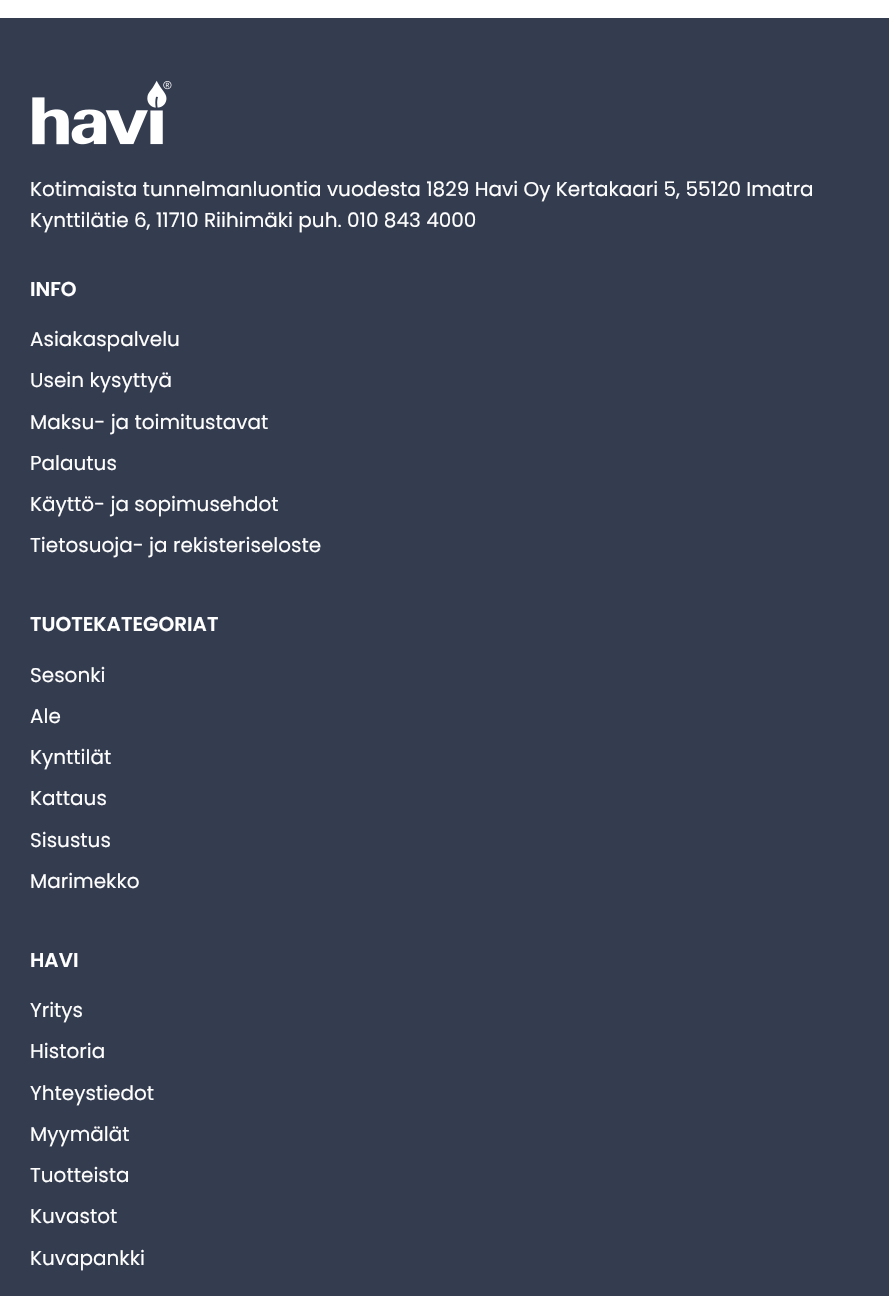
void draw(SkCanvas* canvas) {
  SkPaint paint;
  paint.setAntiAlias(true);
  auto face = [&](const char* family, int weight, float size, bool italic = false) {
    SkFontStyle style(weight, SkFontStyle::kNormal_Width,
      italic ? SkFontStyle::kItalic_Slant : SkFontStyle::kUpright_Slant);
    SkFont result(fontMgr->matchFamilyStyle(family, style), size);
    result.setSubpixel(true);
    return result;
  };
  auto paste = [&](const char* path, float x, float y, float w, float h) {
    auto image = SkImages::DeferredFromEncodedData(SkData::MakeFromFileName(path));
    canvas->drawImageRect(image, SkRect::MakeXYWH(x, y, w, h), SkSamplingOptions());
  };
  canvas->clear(0xffffffff);
  paint.setColor(0xff343c50);
  canvas->drawRect(SkRect::MakeXYWH(0, 18, 889, 1278), paint);
  paste("img/1.png", 32, 80, 140, 65);
  auto f0 = face("Poppins", 400, 20);
  paint.setColor(0xffffffff);
  canvas->drawString("Kotimaista tunnelmanluontia vuodesta 1829 Havi Oy Kertakaari 5, 55120 Imatra", 30, 196, f0, paint);
  canvas->drawString("Kynttilätie 6, 11710 Riihimäki puh. 010 843 4000", 30, 227, f0, paint);
  auto f1 = face("Poppins", 600, 20);
  canvas->drawString("INFO", 30, 296, f1, paint);
  {
    const struct { const char* s; float x, y; } items[] = {
      {"Asiakaspalvelu", 30, 346},
      {"Usein kysyttyä", 30, 387},
      {"Maksu- ja toimitustavat", 30, 429},
      {"Palautus", 30, 470},
      {"Käyttö- ja sopimusehdot", 30, 511},
      {"Tietosuoja- ja rekisteriseloste", 30, 552},
    };
    for (auto [s, x, y] : items) {
      canvas->drawString(s, x, y, f0, paint);
    }
  }
  canvas->drawString("TUOTEKATEGORIAT", 30, 631, f1, paint);
  {
    const struct { const char* s; float x, y; } items[] = {
      {"Sesonki", 30, 682},
      {"Ale", 30, 723},
      {"Kynttilät", 30, 764},
      {"Kattaus", 30, 805},
      {"Sisustus", 30, 847},
      {"Marimekko", 30, 888},
    };
    for (auto [s, x, y] : items) {
      canvas->drawString(s, x, y, f0, paint);
    }
  }
  canvas->drawString("HAVI", 30, 967, f1, paint);
  {
    const struct { const char* s; float x, y; } items[] = {
      {"Yritys", 30, 1017},
      {"Historia", 30, 1058},
      {"Yhteystiedot", 30, 1100},
      {"Myymälät", 30, 1141},
      {"Tuotteista", 30, 1182},
      {"Kuvastot", 30, 1223},
      {"Kuvapankki", 30, 1265},
    };
    for (auto [s, x, y] : items) {
      canvas->drawString(s, x, y, f0, paint);
    }
  }
}
